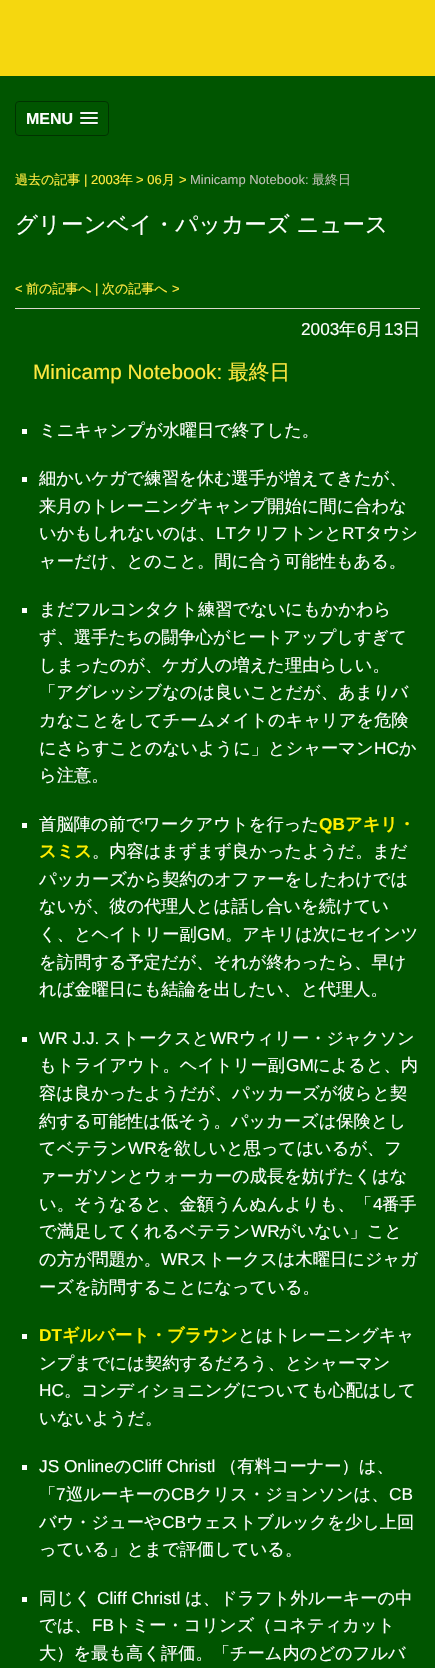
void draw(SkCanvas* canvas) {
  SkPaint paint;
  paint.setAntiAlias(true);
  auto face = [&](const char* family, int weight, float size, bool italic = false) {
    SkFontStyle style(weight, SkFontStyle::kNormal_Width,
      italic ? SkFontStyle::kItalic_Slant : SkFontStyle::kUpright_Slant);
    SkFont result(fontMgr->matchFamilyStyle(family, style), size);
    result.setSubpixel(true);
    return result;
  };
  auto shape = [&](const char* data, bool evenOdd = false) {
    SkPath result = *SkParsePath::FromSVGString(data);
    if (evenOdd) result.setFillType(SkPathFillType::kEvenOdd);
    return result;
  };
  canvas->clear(0xff005500);
  paint.setColor(0xfff5d70f);
  canvas->drawRect(SkRect::MakeXYWH(0, 0, 435, 76), paint);
  paint.setStroke(true);
  paint.setStrokeWidth(1);
  paint.setColor(0xff003300);
  canvas->drawRoundRect(SkRect::MakeXYWH(15.5f, 101.5f, 93, 34), 3.5f, 3.5f, paint);
  paint.setStroke(false);
  paint.setColor(0xff004000);
  canvas->drawPath(shape("M80 113.5C79 115.5 83.5 115 83.5 115H94.5C94.5 115 99 115.5 98 113.5C97 114.5 90.5 114 89 114C87.5 114 81 114.5 80 113.5Z"), paint);
  paint.setColor(0xfff5f5f5);
  canvas->drawRoundRect(SkRect::MakeXYWH(80, 112, 18, 2), 1, 1, paint);
  paint.setColor(0xff004000);
  canvas->drawPath(shape("M80 118.5C79 120.5 83.5 120 83.5 120H94.5C94.5 120 99 120.5 98 118.5C97 119.5 90.5 119 89 119C87.5 119 81 119.5 80 118.5Z"), paint);
  paint.setColor(0xfff5f5f5);
  canvas->drawRoundRect(SkRect::MakeXYWH(80, 117, 18, 2), 1, 1, paint);
  paint.setColor(0xff004000);
  canvas->drawPath(shape("M80 123.5C79 125.5 83.5 125 83.5 125H94.5C94.5 125 99 125.5 98 123.5C97 124.5 90.5 124 89 124C87.5 124 81 124.5 80 123.5Z"), paint);
  paint.setColor(0xfff5f5f5);
  canvas->drawRoundRect(SkRect::MakeXYWH(80, 122, 18, 2), 1, 1, paint);
  {
    const struct { float x, y, w, h; SkColor color; } items[] = {
      {15, 308, 405, 1, 0xffdcd7cd},
      {22, 429, 5, 5, 0xffffffff},
      {22, 477, 5, 5, 0xffffffff},
      {22, 608, 5, 5, 0xffffffff},
      {22, 823, 5, 5, 0xffffffff},
      {22, 1037, 5, 5, 0xffffffff},
      {22, 1334, 5, 5, 0xffffffff},
      {22, 1465, 5, 5, 0xffffffff},
      {22, 1597, 5, 5, 0xffffffff},
    };
    for (auto [x, y, w, h, color] : items) {
      paint.setColor(color);
      canvas->drawRect(SkRect::MakeXYWH(x, y, w, h), paint);
    }
  }
  auto f0 = face("Liberation Sans", 700, 16);
  canvas->drawString("MENU", 26, 124, f0, paint);
  auto f1 = face("WenQuanYi Zen Hei", 500, 13);
  paint.setColor(0xffffe840);
  canvas->drawString("過去の記事", 15, 184, f1, paint);
  auto f2 = face("Liberation Sans", 400, 13);
  canvas->drawString("| 2003", 84, 184, f2, paint);
  canvas->drawString("年", 120, 184, f1, paint);
  canvas->drawString("> 06", 136, 184, f2, paint);
  canvas->drawString("月", 162, 184, f1, paint);
  canvas->drawString(">", 179, 184, f2, paint);
  paint.setColor(0xffbebeb4);
  canvas->drawString("Minicamp Notebook:", 190, 184, f2, paint);
  canvas->drawString("最終日", 312, 184, f1, paint);
  auto f3 = face("WenQuanYi Zen Hei", 500, 22.5f);
  paint.setColor(0xffffffff);
  canvas->drawString("グリーンベイ・パッカーズ ニュース", 15, 232, f3, paint);
  paint.setColor(0xffffe840);
  canvas->drawString("<", 15, 293, f2, paint);
  canvas->drawString("前の記事へ", 26, 293, f1, paint);
  canvas->drawString("|", 95, 293, f2, paint);
  canvas->drawString("次の記事へ", 102, 293, f1, paint);
  canvas->drawString(">", 172, 293, f2, paint);
  auto f4 = face("Liberation Sans", 400, 17.25f);
  paint.setColor(0xffffffff);
  canvas->drawString("2003", 301, 335, f4, paint);
  auto f5 = face("WenQuanYi Zen Hei", 500, 17.25f);
  canvas->drawString("年", 339, 335, f5, paint);
  canvas->drawString("6", 357, 335, f4, paint);
  canvas->drawString("月", 366, 335, f5, paint);
  canvas->drawString("13", 384, 335, f4, paint);
  canvas->drawString("日", 403, 335, f5, paint);
  auto f6 = face("Liberation Sans", 400, 20.75f);
  paint.setColor(0xffffe840);
  canvas->drawString("Minicamp Notebook:", 33, 379, f6, paint);
  auto f7 = face("WenQuanYi Zen Hei", 500, 20.75f);
  canvas->drawString("最終日", 228, 379, f7, paint);
  paint.setColor(0xffffffff);
  {
    const struct { const char* s; float x, y; } items[] = {
      {"ミニキャンプが水曜日で終了した。", 39, 436},
      {"細かいケガで練習を休む選手が増えてきたが、", 39, 484},
      {"来月のトレーニングキャンプ開始に間に合わな", 39, 512},
      {"いかもしれないのは、", 39, 539},
    };
    for (auto [s, x, y] : items) {
      canvas->drawString(s, x, y, f5, paint);
    }
  }
  canvas->drawString("LT", 216, 539, f4, paint);
  canvas->drawString("クリフトンと", 236, 539, f5, paint);
  canvas->drawString("RT", 342, 539, f4, paint);
  {
    const struct { const char* s; float x, y; } items[] = {
      {"タウシ", 365, 539},
      {"ャーだけ、とのこと。間に合う可能性もある。", 39, 567},
      {"まだフルコンタクト練習でないにもかかわら", 39, 615},
      {"ず、選手たちの闘争心がヒートアップしすぎて", 39, 643},
      {"しまったのが、ケガ人の増えた理由らしい。", 39, 671},
      {"「アグレッシブなのは良いことだが、あまりバ", 39, 698},
      {"カなことをしてチームメイトのキャリアを危険", 39, 726},
      {"にさらすことのないように」とシャーマン", 39, 754},
    };
    for (auto [s, x, y] : items) {
      canvas->drawString(s, x, y, f5, paint);
    }
  }
  canvas->drawString("HC", 374, 754, f4, paint);
  {
    const struct { const char* s; float x, y; } items[] = {
      {"か", 399, 754},
      {"ら注意。", 39, 781},
      {"首脳陣の前でワークアウトを行った", 39, 830},
    };
    for (auto [s, x, y] : items) {
      canvas->drawString(s, x, y, f5, paint);
    }
  }
  auto f8 = face("Liberation Sans", 700, 17.25f);
  paint.setColor(0xffffee00);
  canvas->drawString("QB", 319, 830, f8, paint);
  auto f9 = face("WenQuanYi Zen Hei", 700, 17.25f);
  canvas->drawString("アキリ・", 345, 830, f9, paint);
  canvas->drawString("スミス", 39, 857, f9, paint);
  paint.setColor(0xffffffff);
  {
    const struct { const char* s; float x, y; } items[] = {
      {"。内容はまずまず良かったようだ。まだ", 92, 857},
      {"パッカーズから契約のオファーをしたわけでは", 39, 885},
      {"ないが、彼の代理人とは話し合いを続けてい", 39, 912},
      {"く、とヘイトリー副", 39, 940},
    };
    for (auto [s, x, y] : items) {
      canvas->drawString(s, x, y, f5, paint);
    }
  }
  canvas->drawString("GM", 197, 940, f4, paint);
  {
    const struct { const char* s; float x, y; } items[] = {
      {"。アキリは次にセインツ", 225, 940},
      {"を訪問する予定だが、それが終わったら、早け", 39, 968},
      {"れば金曜日にも結論を出したい、と代理人。", 39, 995},
    };
    for (auto [s, x, y] : items) {
      canvas->drawString(s, x, y, f5, paint);
    }
  }
  canvas->drawString("WR J.J.", 39, 1044, f4, paint);
  canvas->drawString("ストークスと", 104, 1044, f5, paint);
  canvas->drawString("WR", 210, 1044, f4, paint);
  canvas->drawString("ウィリー・ジャクソン", 239, 1044, f5, paint);
  canvas->drawString("もトライアウト。ヘイトリー副", 39, 1071, f5, paint);
  canvas->drawString("GM", 286, 1071, f4, paint);
  {
    const struct { const char* s; float x, y; } items[] = {
      {"によると、内", 313, 1071},
      {"容は良かったようだが、パッカーズが彼らと契", 39, 1099},
      {"約する可能性は低そう。パッカーズは保険とし", 39, 1127},
      {"てベテラン", 39, 1154},
    };
    for (auto [s, x, y] : items) {
      canvas->drawString(s, x, y, f5, paint);
    }
  }
  canvas->drawString("WR", 128, 1154, f4, paint);
  {
    const struct { const char* s; float x, y; } items[] = {
      {"を欲しいと思ってはいるが、フ", 156, 1154},
      {"ァーガソンとウォーカーの成長を妨げたくはな", 39, 1182},
      {"い。そうなると、金額うんぬんよりも、「", 39, 1210},
    };
    for (auto [s, x, y] : items) {
      canvas->drawString(s, x, y, f5, paint);
    }
  }
  canvas->drawString("4", 373, 1210, f4, paint);
  canvas->drawString("番手", 382, 1210, f5, paint);
  canvas->drawString("で満足してくれるベテラン", 39, 1237, f5, paint);
  canvas->drawString("WR", 251, 1237, f4, paint);
  canvas->drawString("がいない」こと", 279, 1237, f5, paint);
  canvas->drawString("の方が問題か。", 39, 1265, f5, paint);
  canvas->drawString("WR", 161, 1265, f4, paint);
  canvas->drawString("ストークスは木曜日にジャガ", 190, 1265, f5, paint);
  canvas->drawString("ーズを訪問することになっている。", 39, 1293, f5, paint);
  paint.setColor(0xffffee00);
  canvas->drawString("DT", 39, 1341, f8, paint);
  canvas->drawString("ギルバート・ブラウン", 62, 1341, f9, paint);
  paint.setColor(0xffffffff);
  canvas->drawString("とはトレーニングキャ", 238, 1341, f5, paint);
  canvas->drawString("ンプまでには契約するだろう、とシャーマン", 39, 1369, f5, paint);
  canvas->drawString("HC", 39, 1396, f4, paint);
  canvas->drawString("。コンディショニングについても心配はして", 64, 1396, f5, paint);
  canvas->drawString("いないようだ。", 39, 1424, f5, paint);
  canvas->drawString("JS Online", 39, 1472, f4, paint);
  canvas->drawString("の", 114, 1472, f5, paint);
  canvas->drawString("Cliff Christl", 132, 1472, f4, paint);
  canvas->drawString("（有料コーナー）は、", 220, 1472, f5, paint);
  canvas->drawString("「", 39, 1500, f5, paint);
  canvas->drawString("7", 56, 1500, f4, paint);
  canvas->drawString("巡ルーキーの", 66, 1500, f5, paint);
  canvas->drawString("CB", 171, 1500, f4, paint);
  canvas->drawString("クリス・ジョンソンは、", 195, 1500, f5, paint);
  canvas->drawString("CB", 389, 1500, f4, paint);
  canvas->drawString("バウ・ジューや", 39, 1528, f5, paint);
  canvas->drawString("CB", 162, 1528, f4, paint);
  {
    const struct { const char* s; float x, y; } items[] = {
      {"ウェストブルックを少し上回", 186, 1528},
      {"っている」とまで評価している。", 39, 1555},
      {"同じく", 39, 1604},
    };
    for (auto [s, x, y] : items) {
      canvas->drawString(s, x, y, f5, paint);
    }
  }
  canvas->drawString("Cliff Christl", 97, 1604, f4, paint);
  canvas->drawString("は、ドラフト外ルーキーの中", 185, 1604, f5, paint);
  canvas->drawString("では、", 39, 1631, f5, paint);
  canvas->drawString("FB", 92, 1631, f4, paint);
  canvas->drawString("トミー・コリンズ（コネティカット", 114, 1631, f5, paint);
  canvas->drawString("大）を最も高く評価。「チーム内のどのフルバ", 39, 1659, f5, paint);
}
